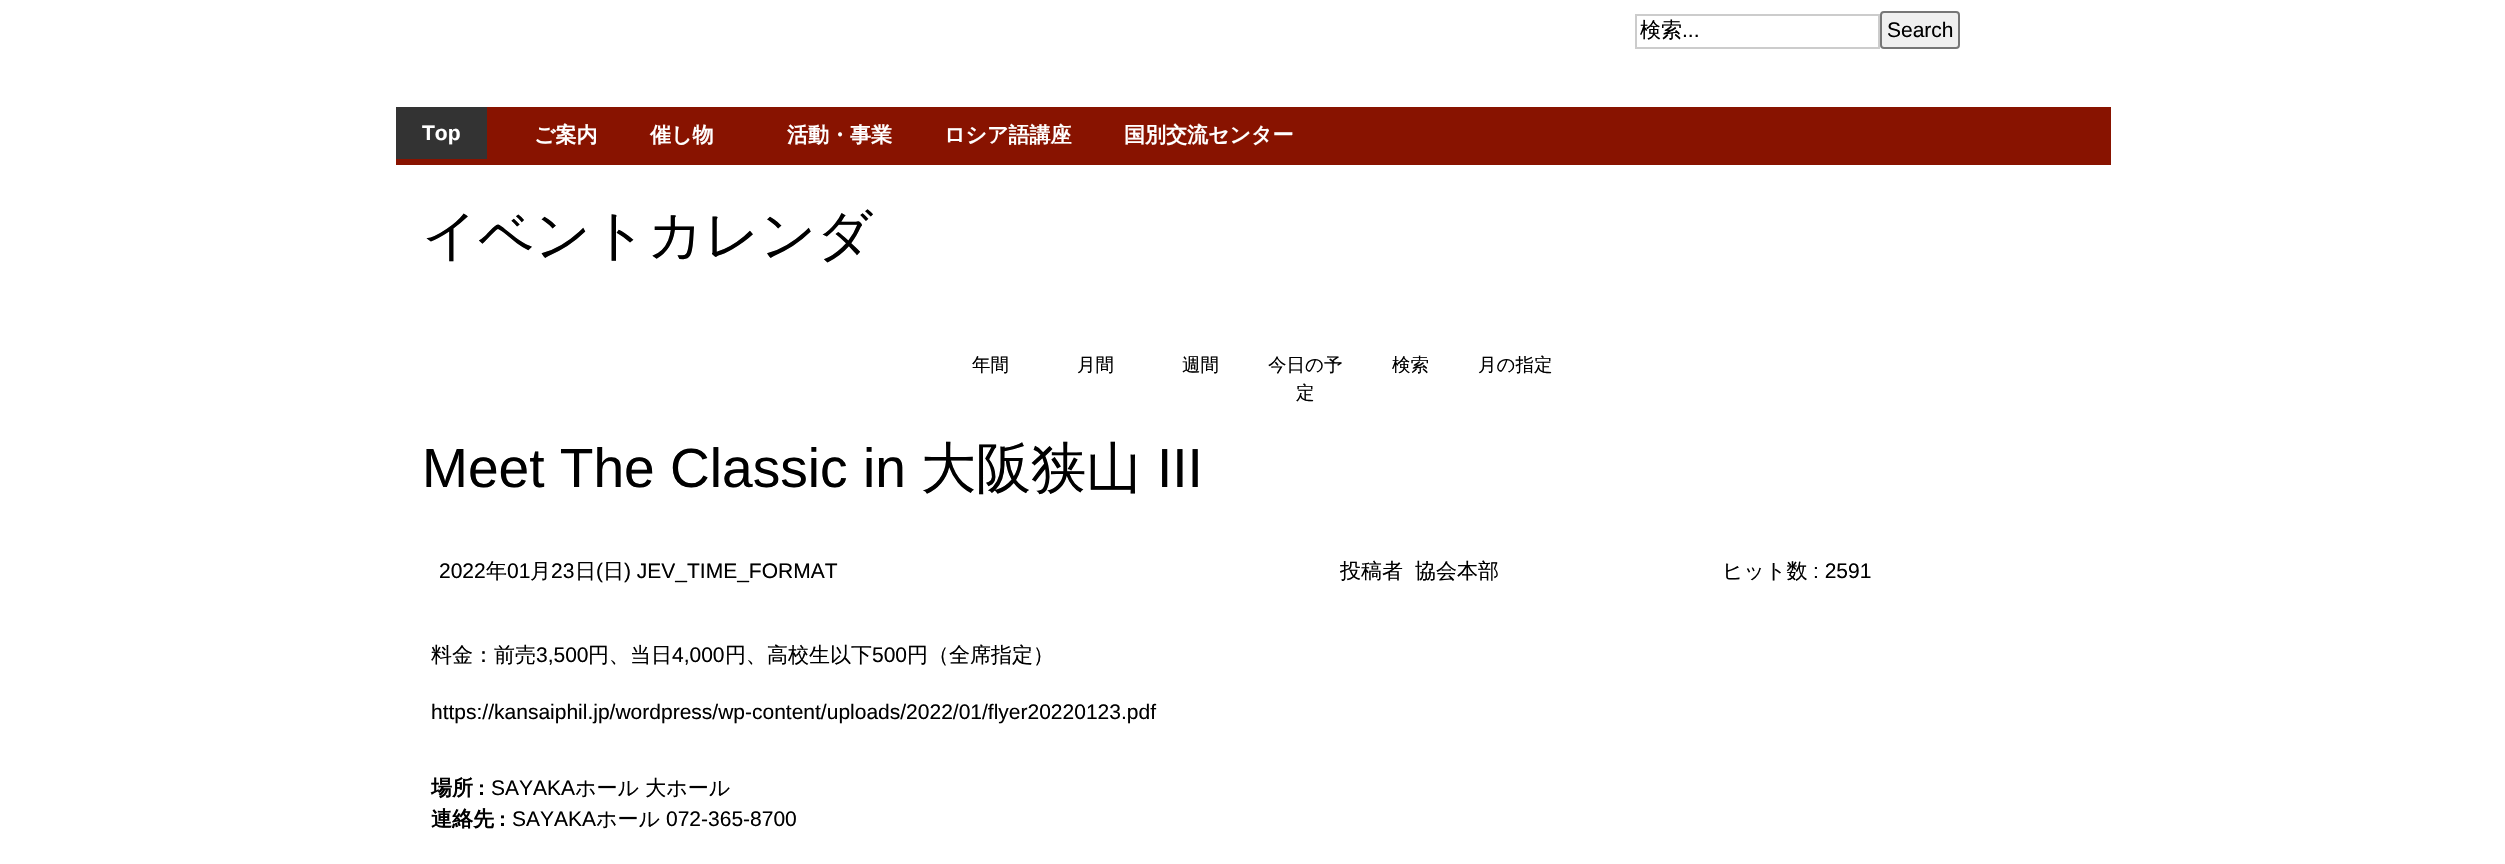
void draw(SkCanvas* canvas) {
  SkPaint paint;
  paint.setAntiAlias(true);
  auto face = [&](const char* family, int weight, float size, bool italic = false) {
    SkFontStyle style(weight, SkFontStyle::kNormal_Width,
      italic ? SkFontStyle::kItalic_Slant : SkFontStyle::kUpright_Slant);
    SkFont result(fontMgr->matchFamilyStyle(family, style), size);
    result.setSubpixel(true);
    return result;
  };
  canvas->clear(0xffffffff);
  paint.setStroke(true);
  paint.setStrokeWidth(2);
  paint.setColor(0xffcccccc);
  canvas->drawRect(SkRect::MakeXYWH(1636, 15, 243, 33), paint);
  paint.setStroke(false);
  paint.setColor(0xffefefef);
  canvas->drawRoundRect(SkRect::MakeXYWH(1881, 12, 78, 36), 3, 3, paint);
  paint.setStroke(true);
  paint.setColor(0xff767676);
  canvas->drawRoundRect(SkRect::MakeXYWH(1881, 12, 78, 36), 3, 3, paint);
  paint.setStroke(false);
  paint.setColor(0xff881300);
  canvas->drawRect(SkRect::MakeXYWH(396, 107, 1715, 58), paint);
  paint.setColor(0xff333333);
  canvas->drawRect(SkRect::MakeXYWH(396, 107, 91, 52), paint);
  auto f0 = face("WenQuanYi Zen Hei", 500, 21);
  paint.setColor(0xff000000);
  canvas->drawString("検索", 1640, 37, f0, paint);
  auto f1 = face("Liberation Sans", 400, 21);
  canvas->drawString("...", 1682, 37, f1, paint);
  canvas->drawString("Search", 1887, 37, f1, paint);
  auto f2 = face("Liberation Sans", 700, 21);
  paint.setColor(0xffffffff);
  canvas->drawString("Top", 422, 140, f2, paint);
  auto f3 = face("WenQuanYi Zen Hei", 700, 21);
  {
    const struct { const char* s; float x, y; } items[] = {
      {"ご案内", 534, 142},
      {"催し物", 650, 142},
      {"活動・事業", 787, 142},
      {"ロシア語講座", 944, 142},
      {"国別交流センター", 1124, 142},
    };
    for (auto [s, x, y] : items) {
      canvas->drawString(s, x, y, f3, paint);
    }
  }
  auto f4 = face("WenQuanYi Zen Hei", 500, 55.1f);
  paint.setColor(0xff000000);
  canvas->drawString("イベントカレンダ", 422, 254, f4, paint);
  auto f5 = face("WenQuanYi Zen Hei", 500, 18.5f);
  {
    const struct { const char* s; float x, y; } items[] = {
      {"年間", 972, 371},
      {"月間", 1077, 371},
      {"週間", 1182, 371},
      {"今日の予", 1268, 371},
      {"定", 1296, 399},
      {"検索", 1392, 371},
      {"月の指定", 1478, 371},
    };
    for (auto [s, x, y] : items) {
      canvas->drawString(s, x, y, f5, paint);
    }
  }
  auto f6 = face("Liberation Sans", 400, 55.1f);
  canvas->drawString("Meet The Classic in", 422, 487, f6, paint);
  canvas->drawString("大阪狭山", 921, 487, f4, paint);
  canvas->drawString("III", 1157, 487, f6, paint);
  canvas->drawString("2022", 439, 578, f1, paint);
  canvas->drawString("年", 486, 578, f0, paint);
  canvas->drawString("01", 507, 578, f1, paint);
  canvas->drawString("月", 530, 578, f0, paint);
  canvas->drawString("23", 551, 578, f1, paint);
  canvas->drawString("日", 575, 578, f0, paint);
  canvas->drawString("(", 596, 578, f1, paint);
  canvas->drawString("日", 603, 578, f0, paint);
  canvas->drawString(") JEV_TIME_FORMAT", 624, 578, f1, paint);
  {
    const struct { const char* s; float x, y; } items[] = {
      {"投稿者", 1340, 578},
      {"協会本部", 1415, 578},
      {"ヒット数", 1722, 578},
    };
    for (auto [s, x, y] : items) {
      canvas->drawString(s, x, y, f0, paint);
    }
  }
  canvas->drawString(": 2591", 1813, 578, f1, paint);
  canvas->drawString("料金：前売", 431, 662, f0, paint);
  canvas->drawString("3,500", 536, 662, f1, paint);
  canvas->drawString("円、当日", 588, 662, f0, paint);
  canvas->drawString("4,000", 672, 662, f1, paint);
  canvas->drawString("円、高校生以下", 725, 662, f0, paint);
  canvas->drawString("500", 872, 662, f1, paint);
  canvas->drawString("円（全席指定）", 907, 662, f0, paint);
  canvas->drawString("https://kansaiphil.jp/wordpress/wp-content/uploads/2022/01/flyer20220123.pdf", 431, 719, f1, paint);
  canvas->drawString("場所", 431, 795, f3, paint);
  canvas->drawString(":", 478, 795, f2, paint);
  canvas->drawString("SAYAKA", 491, 795, f1, paint);
  canvas->drawString("ホール 大ホール", 575, 795, f0, paint);
  canvas->drawString("連絡先", 431, 826, f3, paint);
  canvas->drawString(":", 499, 826, f2, paint);
  canvas->drawString("SAYAKA", 512, 826, f1, paint);
  canvas->drawString("ホール", 596, 826, f0, paint);
  canvas->drawString("072-365-8700", 666, 826, f1, paint);
}
